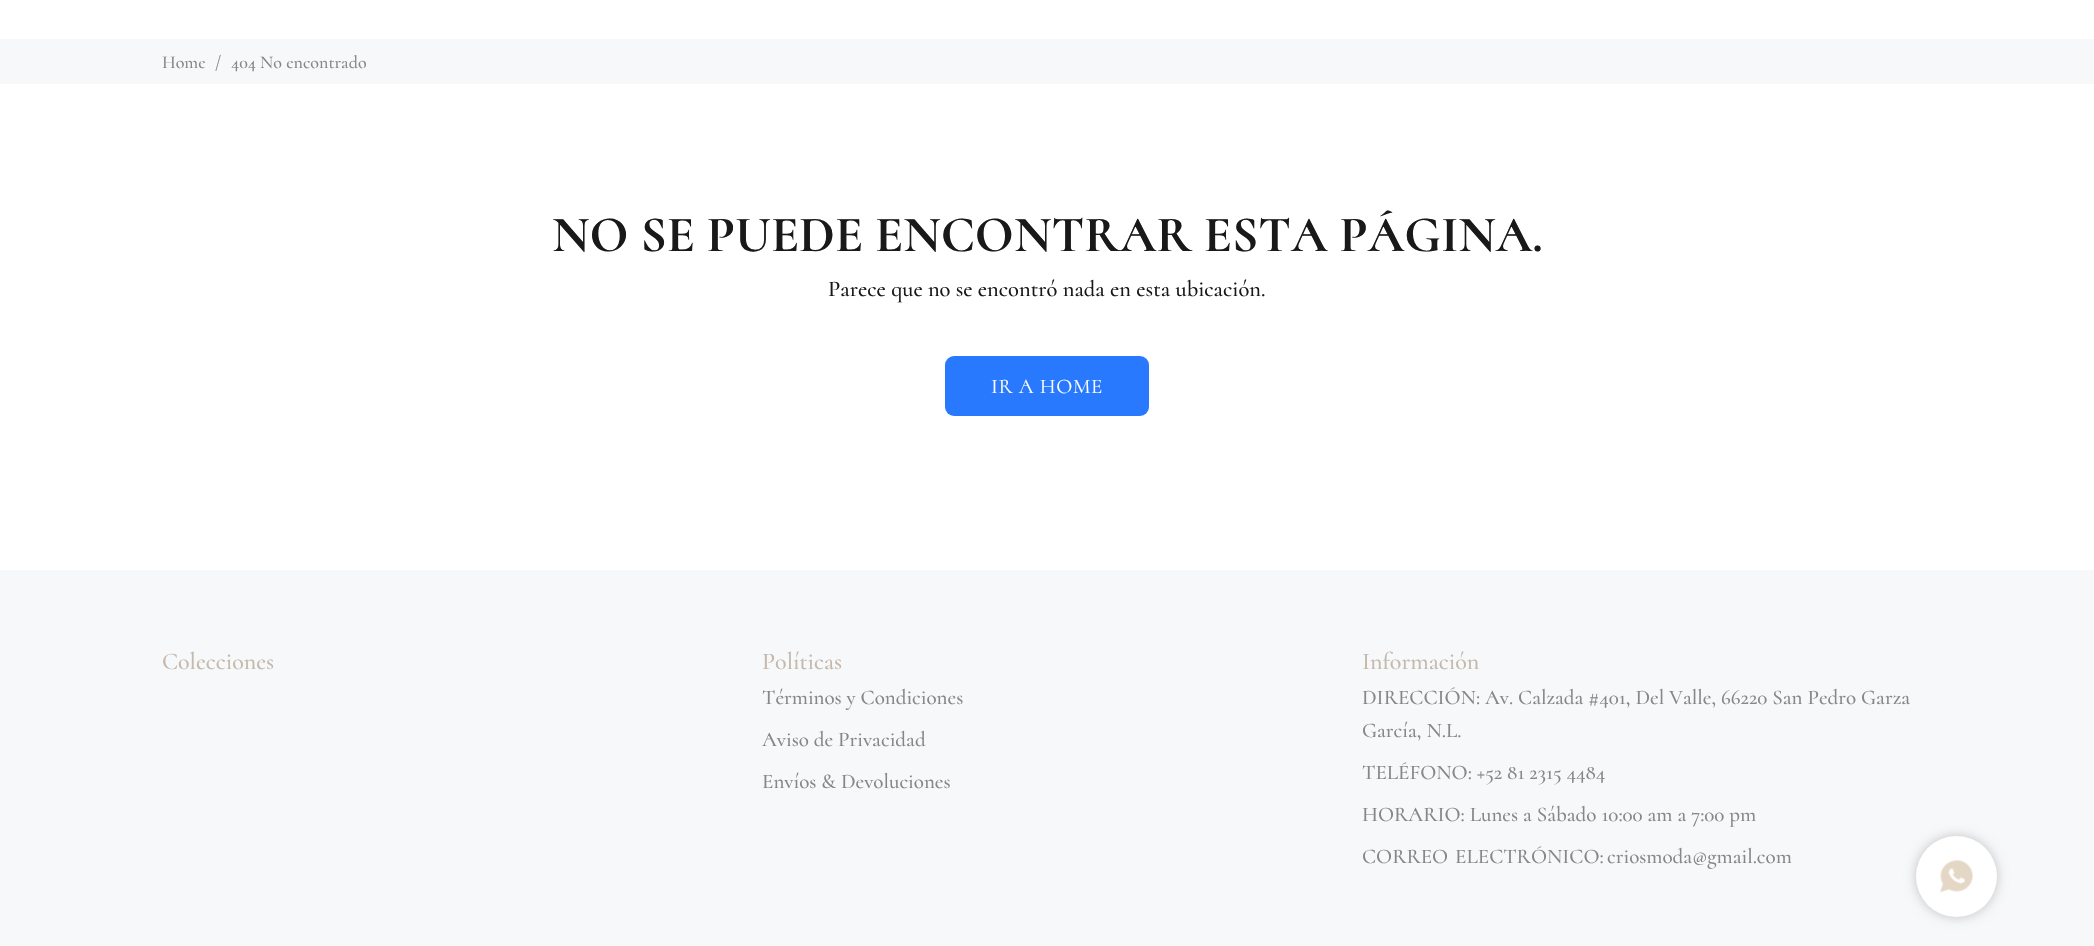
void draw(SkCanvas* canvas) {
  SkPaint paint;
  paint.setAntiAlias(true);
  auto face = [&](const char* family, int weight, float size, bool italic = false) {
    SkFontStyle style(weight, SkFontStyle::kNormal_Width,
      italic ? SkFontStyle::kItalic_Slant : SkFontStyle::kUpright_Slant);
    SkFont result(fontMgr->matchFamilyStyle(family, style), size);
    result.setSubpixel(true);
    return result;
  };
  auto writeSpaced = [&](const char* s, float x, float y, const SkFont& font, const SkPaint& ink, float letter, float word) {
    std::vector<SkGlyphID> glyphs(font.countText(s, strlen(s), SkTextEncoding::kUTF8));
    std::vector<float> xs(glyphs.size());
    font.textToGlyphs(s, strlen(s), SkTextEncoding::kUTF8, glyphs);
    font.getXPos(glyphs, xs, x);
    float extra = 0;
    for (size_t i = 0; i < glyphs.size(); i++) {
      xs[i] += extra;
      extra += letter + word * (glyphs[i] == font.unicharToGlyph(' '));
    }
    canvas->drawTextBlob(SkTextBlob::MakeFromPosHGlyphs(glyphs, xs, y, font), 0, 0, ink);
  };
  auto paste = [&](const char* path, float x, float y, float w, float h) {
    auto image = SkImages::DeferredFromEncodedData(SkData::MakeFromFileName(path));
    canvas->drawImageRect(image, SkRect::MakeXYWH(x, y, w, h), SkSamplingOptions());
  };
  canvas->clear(0xffffffff);
  paint.setColor(0xfff7f8fa);
  canvas->drawRect(SkRect::MakeXYWH(0, 39, 2094, 45), paint);
  paint.setColor(0xff2879fe);
  canvas->drawRoundRect(SkRect::MakeXYWH(945, 356, 204, 60), 9, 9, paint);
  paint.setColor(0xfff7f8fa);
  canvas->drawRect(SkRect::MakeXYWH(0, 570, 2094, 376), paint);
  paint.setColor(0xffc2c2c2);
  paint.setMaskFilter(SkMaskFilter::MakeBlur(kNormal_SkBlurStyle, 6));
  canvas->drawRoundRect(SkRect::MakeXYWH(1916, 836, 81, 81), 40.5f, 40.5f, paint);
  paint.setMaskFilter(nullptr);
  paint.setColor(0xffffffff);
  canvas->drawCircle(1956.5f, 876.5f, 40.5f, paint);
  paste("img/1.png", 1940, 859, 33, 34);
  auto f0 = face("Cormorant", 500, 18);
  paint.setColor(0xff878787);
  {
    const struct { const char* s; float x, y; } items[] = {
      {"Home", 162, 68},
      {"/", 215, 68},
      {"404 No encontrado", 231, 68},
    };
    for (auto [s, x, y] : items) {
      canvas->drawString(s, x, y, f0, paint);
    }
  }
  auto f1 = face("Cormorant", 700, 51);
  paint.setColor(0xff191919);
  canvas->drawString("NO SE PUEDE ENCONTRAR ESTA PÁGINA.", 552, 251, f1, paint);
  auto f2 = face("Cormorant", 500, 22.5f);
  canvas->drawString("Parece que no se encontró nada en esta ubicación.", 828, 296, f2, paint);
  auto f3 = face("Cormorant", 400, 21);
  paint.setColor(0xffffffff);
  writeSpaced("IR A HOME", 991, 393, f3, paint, 0.6f, 0);
  auto f4 = face("Cormorant", 500, 24);
  paint.setColor(0xffc6b8ab);
  canvas->drawString("Colecciones", 162, 669, f4, paint);
  canvas->drawString("Políticas", 762, 669, f4, paint);
  auto f5 = face("Cormorant", 500, 21);
  paint.setColor(0xff878787);
  {
    const struct { const char* s; float x, y; } items[] = {
      {"Términos y Condiciones", 762, 704},
      {"Aviso de Privacidad", 762, 746},
      {"Envíos & Devoluciones", 762, 788},
    };
    for (auto [s, x, y] : items) {
      canvas->drawString(s, x, y, f5, paint);
    }
  }
  paint.setColor(0xffc6b8ab);
  canvas->drawString("Información", 1362, 669, f4, paint);
  paint.setColor(0xff878787);
  {
    const struct { const char* s; float x, y; } items[] = {
      {"DIRECCIÓN: Av. Calzada #401, Del Valle, 66220 San Pedro Garza", 1362, 704},
      {"García, N.L.", 1362, 737},
      {"TELÉFONO: +52 81 2315 4484", 1362, 779},
      {"HORARIO: Lunes a Sábado 10:00 am a 7:00 pm", 1362, 821},
    };
    for (auto [s, x, y] : items) {
      canvas->drawString(s, x, y, f5, paint);
    }
  }
  writeSpaced("CORREO ELECTRÓNICO:", 1362, 863, f5, paint, 0, 2);
  canvas->drawString("criosmoda@gmail.com", 1607, 863, f5, paint);
}
